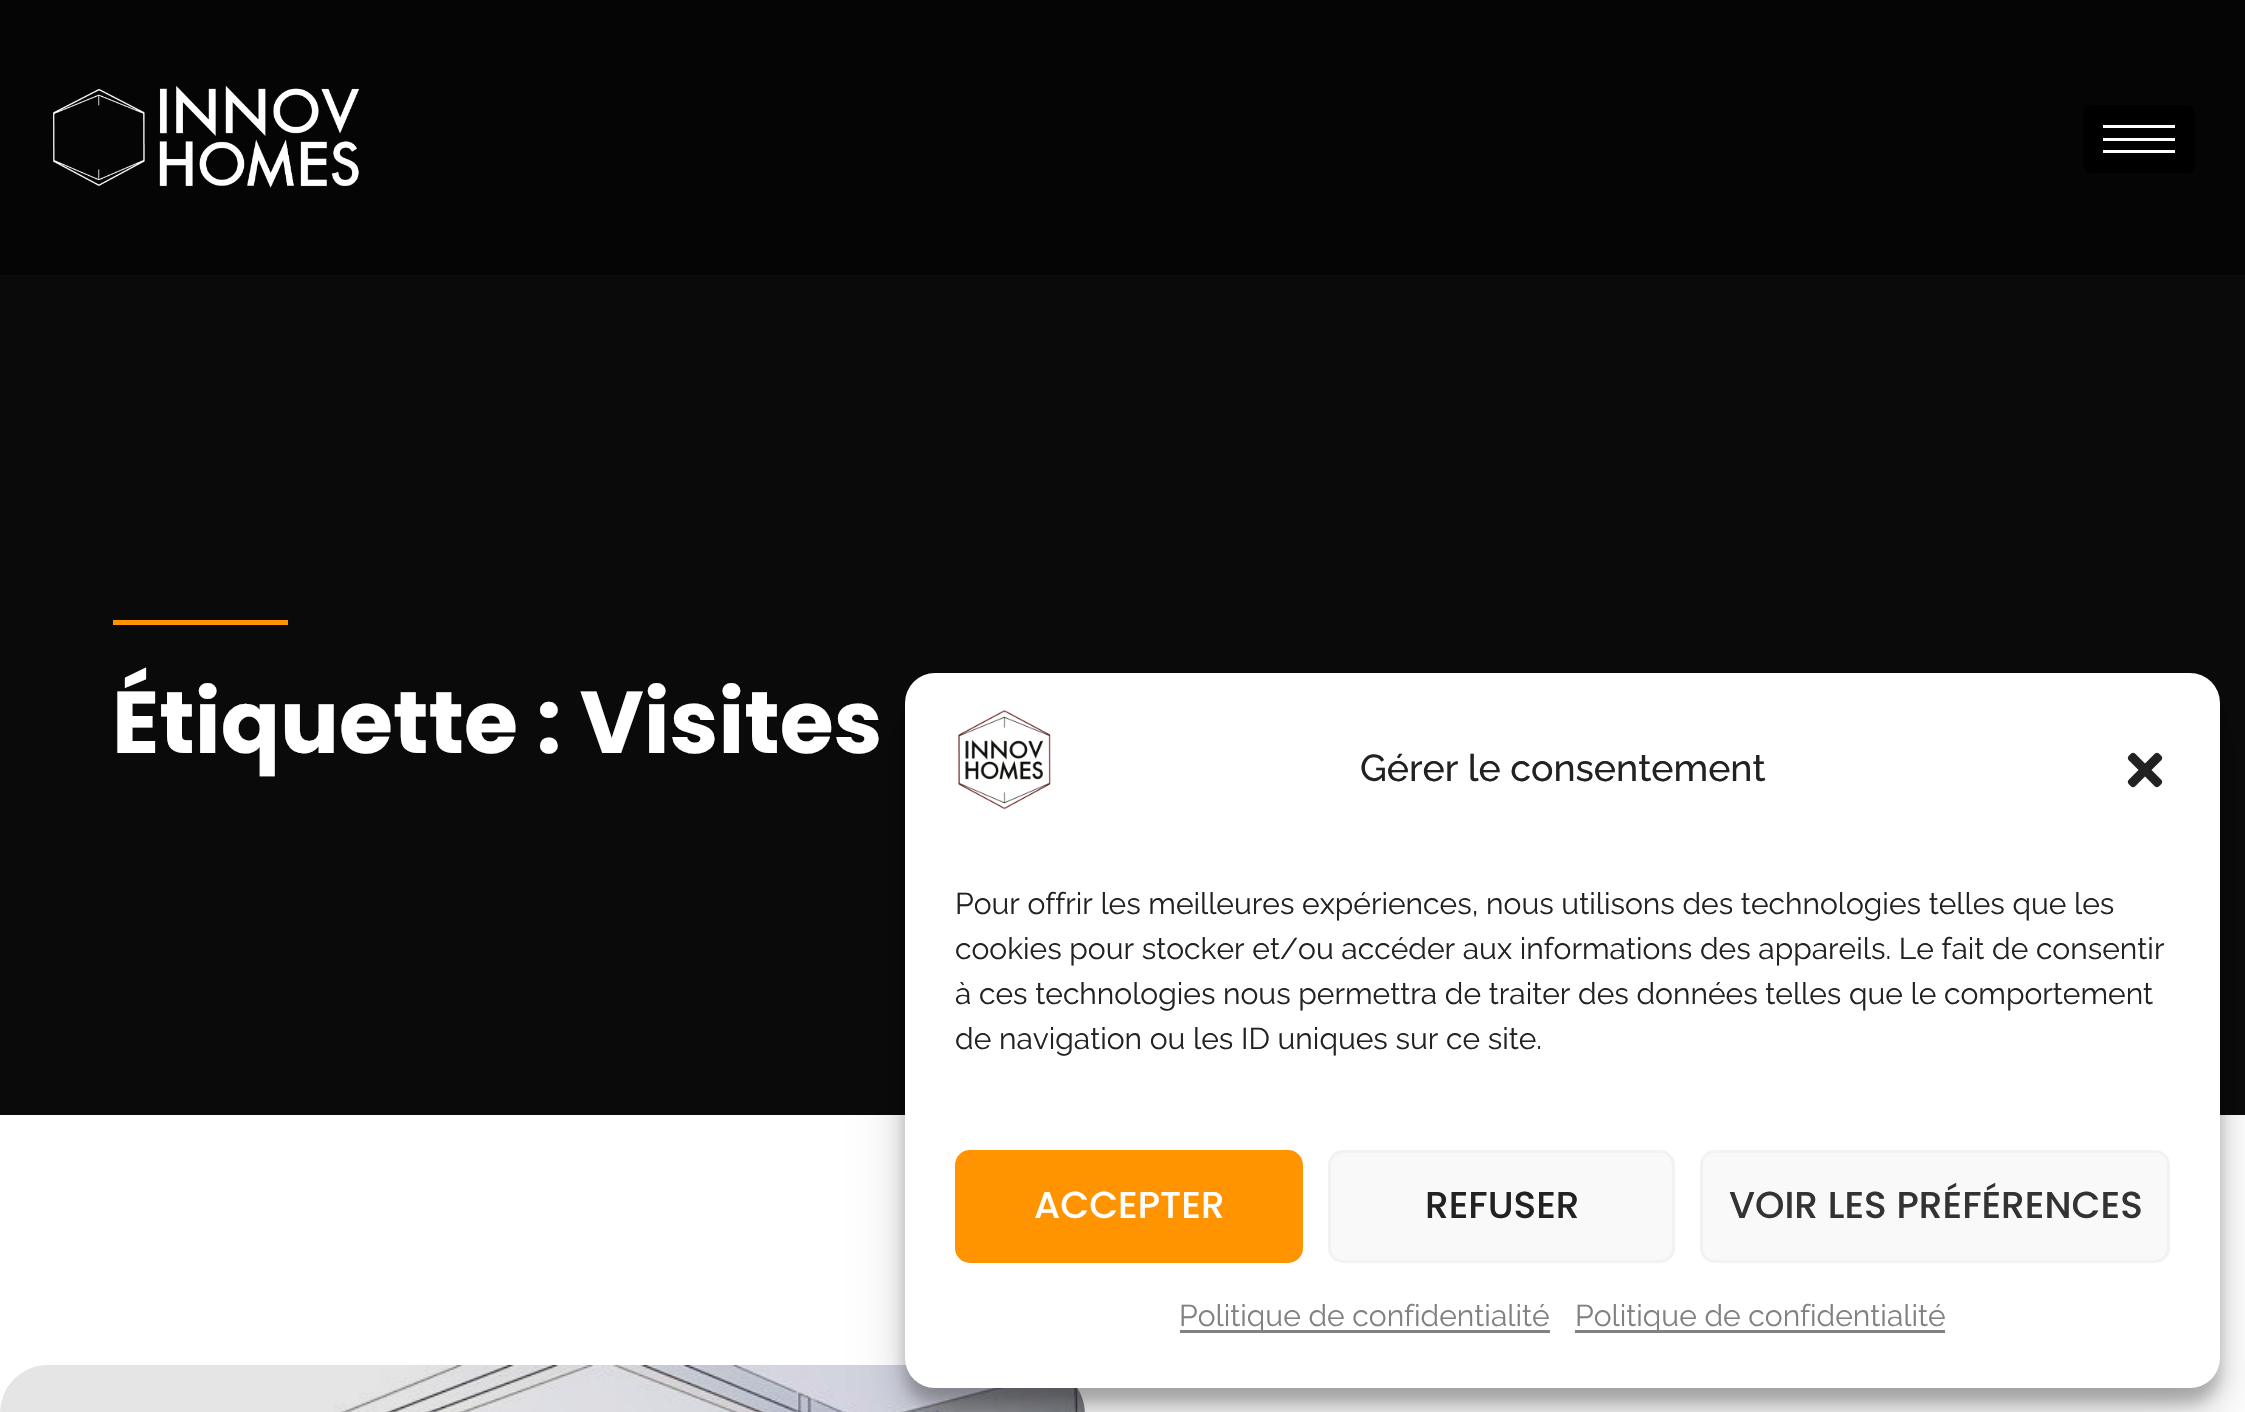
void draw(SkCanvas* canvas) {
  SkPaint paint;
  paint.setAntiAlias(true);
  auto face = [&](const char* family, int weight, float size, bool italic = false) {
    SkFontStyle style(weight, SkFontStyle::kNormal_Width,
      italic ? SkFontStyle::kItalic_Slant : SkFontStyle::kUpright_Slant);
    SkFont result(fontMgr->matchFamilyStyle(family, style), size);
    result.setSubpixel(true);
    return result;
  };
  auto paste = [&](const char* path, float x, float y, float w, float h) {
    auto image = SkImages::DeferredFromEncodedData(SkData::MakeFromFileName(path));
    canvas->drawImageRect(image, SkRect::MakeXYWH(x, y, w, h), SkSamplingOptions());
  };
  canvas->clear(0xffffffff);
  paint.setColor(0xff050505);
  canvas->drawRect(SkRect::MakeXYWH(0, 0, 2245, 275), paint);
  paste("img/1.png", 53, 86, 306, 102);
  paint.setColor(0xff000000);
  canvas->drawRoundRect(SkRect::MakeXYWH(2083, 105, 112, 68), 8, 8, paint);
  {
    const struct { float x, y, w, h; SkColor color; } items[] = {
      {2103, 125, 72, 3, 0xffffffff},
      {2103, 138, 72, 3, 0xffffffff},
      {2103, 150, 72, 3, 0xffffffff},
      {0, 275, 2245, 840, 0xff0a0a0a},
      {113, 620, 175, 5, 0xffff9300},
    };
    for (auto [x, y, w, h, color] : items) {
      paint.setColor(color);
      canvas->drawRect(SkRect::MakeXYWH(x, y, w, h), paint);
    }
  }
  paint.setColor(0xfff8f8f8);
  canvas->drawRoundRect(SkRect::MakeXYWH(0, 1365, 1085, 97), 50, 50, paint);
  paste("img/2.png", 0, 1365, 1085, 47);
  paint.setColor(0x1a000000);
  canvas->drawRoundRect(SkRect::MakeXYWH(0, 1365, 1085, 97), 50, 50, paint);
  paint.setColor(0x3b000000);
  paint.setMaskFilter(SkMaskFilter::MakeBlur(kNormal_SkBlurStyle, 7.5f));
  canvas->drawRoundRect(SkRect::MakeXYWH(905, 688, 1315, 715), 30, 30, paint);
  paint.setMaskFilter(nullptr);
  paint.setColor(0x30000000);
  paint.setMaskFilter(SkMaskFilter::MakeBlur(kNormal_SkBlurStyle, 25));
  canvas->drawRoundRect(SkRect::MakeXYWH(905, 698, 1315, 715), 30, 30, paint);
  paint.setMaskFilter(nullptr);
  paint.setColor(0xffffffff);
  canvas->drawRoundRect(SkRect::MakeXYWH(905, 673, 1315, 715), 30, 30, paint);
  paste("img/3.png", 958, 710, 93, 100);
  paste("img/4.png", 2127, 752, 36, 36);
  paint.setColor(0xffff9300);
  canvas->drawRoundRect(SkRect::MakeXYWH(956.5f, 1151.5f, 345, 110), 13.5f, 13.5f, paint);
  paint.setStroke(true);
  paint.setStrokeWidth(3);
  canvas->drawRoundRect(SkRect::MakeXYWH(956.5f, 1151.5f, 345, 110), 13.5f, 13.5f, paint);
  paint.setStroke(false);
  paint.setColor(0xfff9f9f9);
  canvas->drawRoundRect(SkRect::MakeXYWH(1329.5f, 1151.5f, 344, 110), 13.5f, 13.5f, paint);
  paint.setStroke(true);
  paint.setColor(0xfff2f2f2);
  canvas->drawRoundRect(SkRect::MakeXYWH(1329.5f, 1151.5f, 344, 110), 13.5f, 13.5f, paint);
  paint.setStroke(false);
  paint.setColor(0xfff9f9f9);
  canvas->drawRoundRect(SkRect::MakeXYWH(1701.5f, 1151.5f, 467, 110), 13.5f, 13.5f, paint);
  paint.setStroke(true);
  paint.setColor(0xfff2f2f2);
  canvas->drawRoundRect(SkRect::MakeXYWH(1701.5f, 1151.5f, 467, 110), 13.5f, 13.5f, paint);
  paint.setStroke(false);
  paint.setColor(0xff818181);
  canvas->drawRect(SkRect::MakeXYWH(1180, 1330, 370, 3), paint);
  canvas->drawRect(SkRect::MakeXYWH(1575, 1330, 370, 3), paint);
  auto f0 = face("Poppins", 700, 87.5f);
  paint.setColor(0xffffffff);
  canvas->drawString("Étiquette : Visites", 112, 753, f0, paint);
  auto f1 = face("Raleway", 500, 37.5f);
  paint.setColor(0xff222222);
  canvas->drawString("Gérer le consentement", 1360, 781, f1, paint);
  auto f2 = face("Raleway", 400, 30);
  {
    const struct { const char* s; float x, y; } items[] = {
      {"Pour offrir les meilleures expériences, nous utilisons des technologies telles que les", 955, 914},
      {"cookies pour stocker et/ou accéder aux informations des appareils. Le fait de consentir", 955, 959},
      {"à ces technologies nous permettra de traiter des données telles que le comportement", 955, 1004},
      {"de navigation ou les ID uniques sur ce site.", 955, 1049},
    };
    for (auto [s, x, y] : items) {
      canvas->drawString(s, x, y, f2, paint);
    }
  }
  auto f3 = face("Poppins", 500, 37.5f);
  paint.setColor(0xffffffff);
  canvas->drawString("ACCEPTER", 1034, 1218, f3, paint);
  paint.setColor(0xff222222);
  canvas->drawString("REFUSER", 1425, 1218, f3, paint);
  paint.setColor(0xff333333);
  canvas->drawString("VOIR LES PRÉFÉRENCES", 1729, 1218, f3, paint);
  paint.setColor(0xff818181);
  canvas->drawString("Politique de confidentialité", 1179, 1326, f2, paint);
  canvas->drawString("Politique de confidentialité", 1575, 1326, f2, paint);
}
